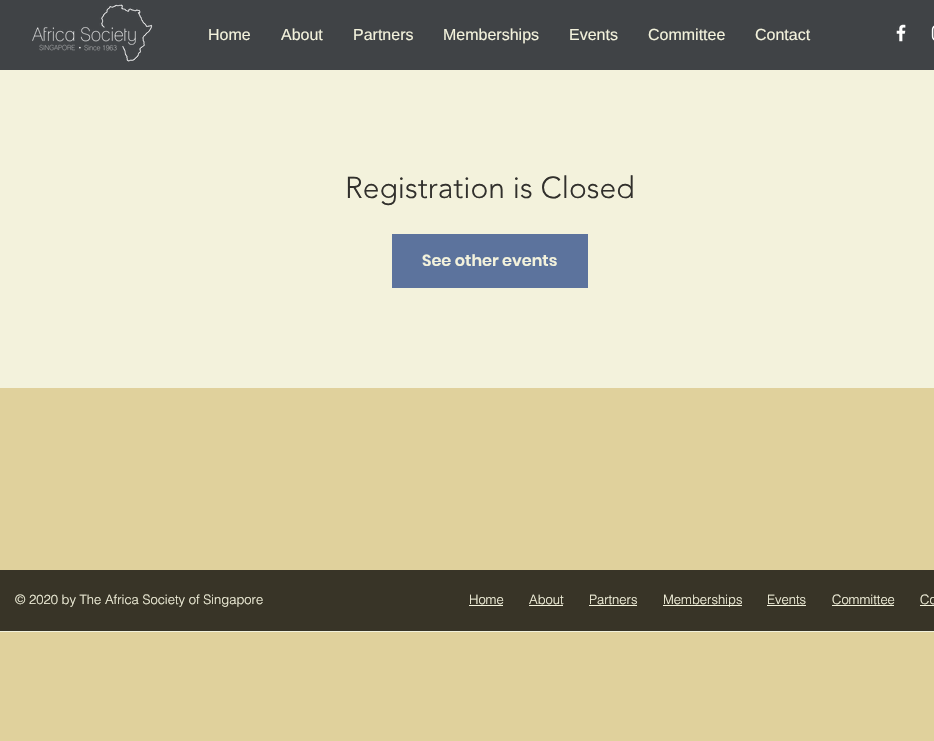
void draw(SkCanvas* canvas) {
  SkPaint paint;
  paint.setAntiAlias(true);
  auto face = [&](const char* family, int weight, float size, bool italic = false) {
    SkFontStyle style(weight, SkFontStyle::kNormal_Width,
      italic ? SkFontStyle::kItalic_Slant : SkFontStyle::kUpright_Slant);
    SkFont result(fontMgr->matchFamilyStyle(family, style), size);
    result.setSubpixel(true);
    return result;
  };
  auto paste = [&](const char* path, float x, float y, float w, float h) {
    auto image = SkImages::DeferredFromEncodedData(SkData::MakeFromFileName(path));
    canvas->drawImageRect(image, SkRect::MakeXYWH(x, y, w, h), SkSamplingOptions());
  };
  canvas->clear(0xffe0d19c);
  paint.setColor(0xff404346);
  canvas->drawRect(SkRect::MakeXYWH(0, 0, 934, 70), paint);
  paste("img/1.png", 32, 4, 121, 58);
  paste("img/2.png", 896, 24, 10, 18);
  paste("img/3.png", 931, 25, 3, 16);
  {
    const struct { float x, y, w, h; SkColor color; } items[] = {
      {0, 70, 934, 318, 0xfff3f2dc},
      {392, 234, 196, 54, 0xff5c739d},
      {0, 570, 934, 61, 0xff383427},
      {469, 605, 34, 1, 0xfff3f2dc},
      {529, 605, 34, 1, 0xfff3f2dc},
      {589, 605, 48, 1, 0xfff3f2dc},
      {663, 605, 79, 1, 0xfff3f2dc},
      {767, 605, 39, 1, 0xfff3f2dc},
      {832, 605, 62, 1, 0xfff3f2dc},
      {920, 605, 14, 1, 0xfff3f2dc},
      {0, 631, 934, 1, 0xfff3f2dc},
    };
    for (auto [x, y, w, h, color] : items) {
      paint.setColor(color);
      canvas->drawRect(SkRect::MakeXYWH(x, y, w, h), paint);
    }
  }
  auto f0 = face("Liberation Sans", 400, 16);
  {
    const struct { const char* s; float x, y; } items[] = {
      {"Home", 208, 40},
      {"About", 281, 40},
      {"Partners", 353, 40},
      {"Memberships", 443, 40},
      {"Events", 569, 40},
      {"Committee", 648, 40},
      {"Contact", 755, 40},
    };
    for (auto [s, x, y] : items) {
      canvas->drawString(s, x, y, f0, paint);
    }
  }
  auto f1 = face("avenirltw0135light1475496", 300, 30);
  paint.setColor(0xff31302c);
  canvas->drawString("Registration is Closed", 345, 198, f1, paint);
  auto f2 = face("Poppins", 600, 16);
  paint.setColor(0xfff3f2dc);
  canvas->drawString("See other events", 422, 266, f2, paint);
  auto f3 = face("helvetica", 300, 13);
  {
    const struct { const char* s; float x, y; } items[] = {
      {"© 2020 by The Africa Society of Singapore", 15, 604},
      {"Home", 469, 604},
      {"About", 529, 604},
      {"Partners", 589, 604},
      {"Memberships", 663, 604},
      {"Events", 767, 604},
      {"Committee", 832, 604},
      {"Co", 920, 604},
    };
    for (auto [s, x, y] : items) {
      canvas->drawString(s, x, y, f3, paint);
    }
  }
}
